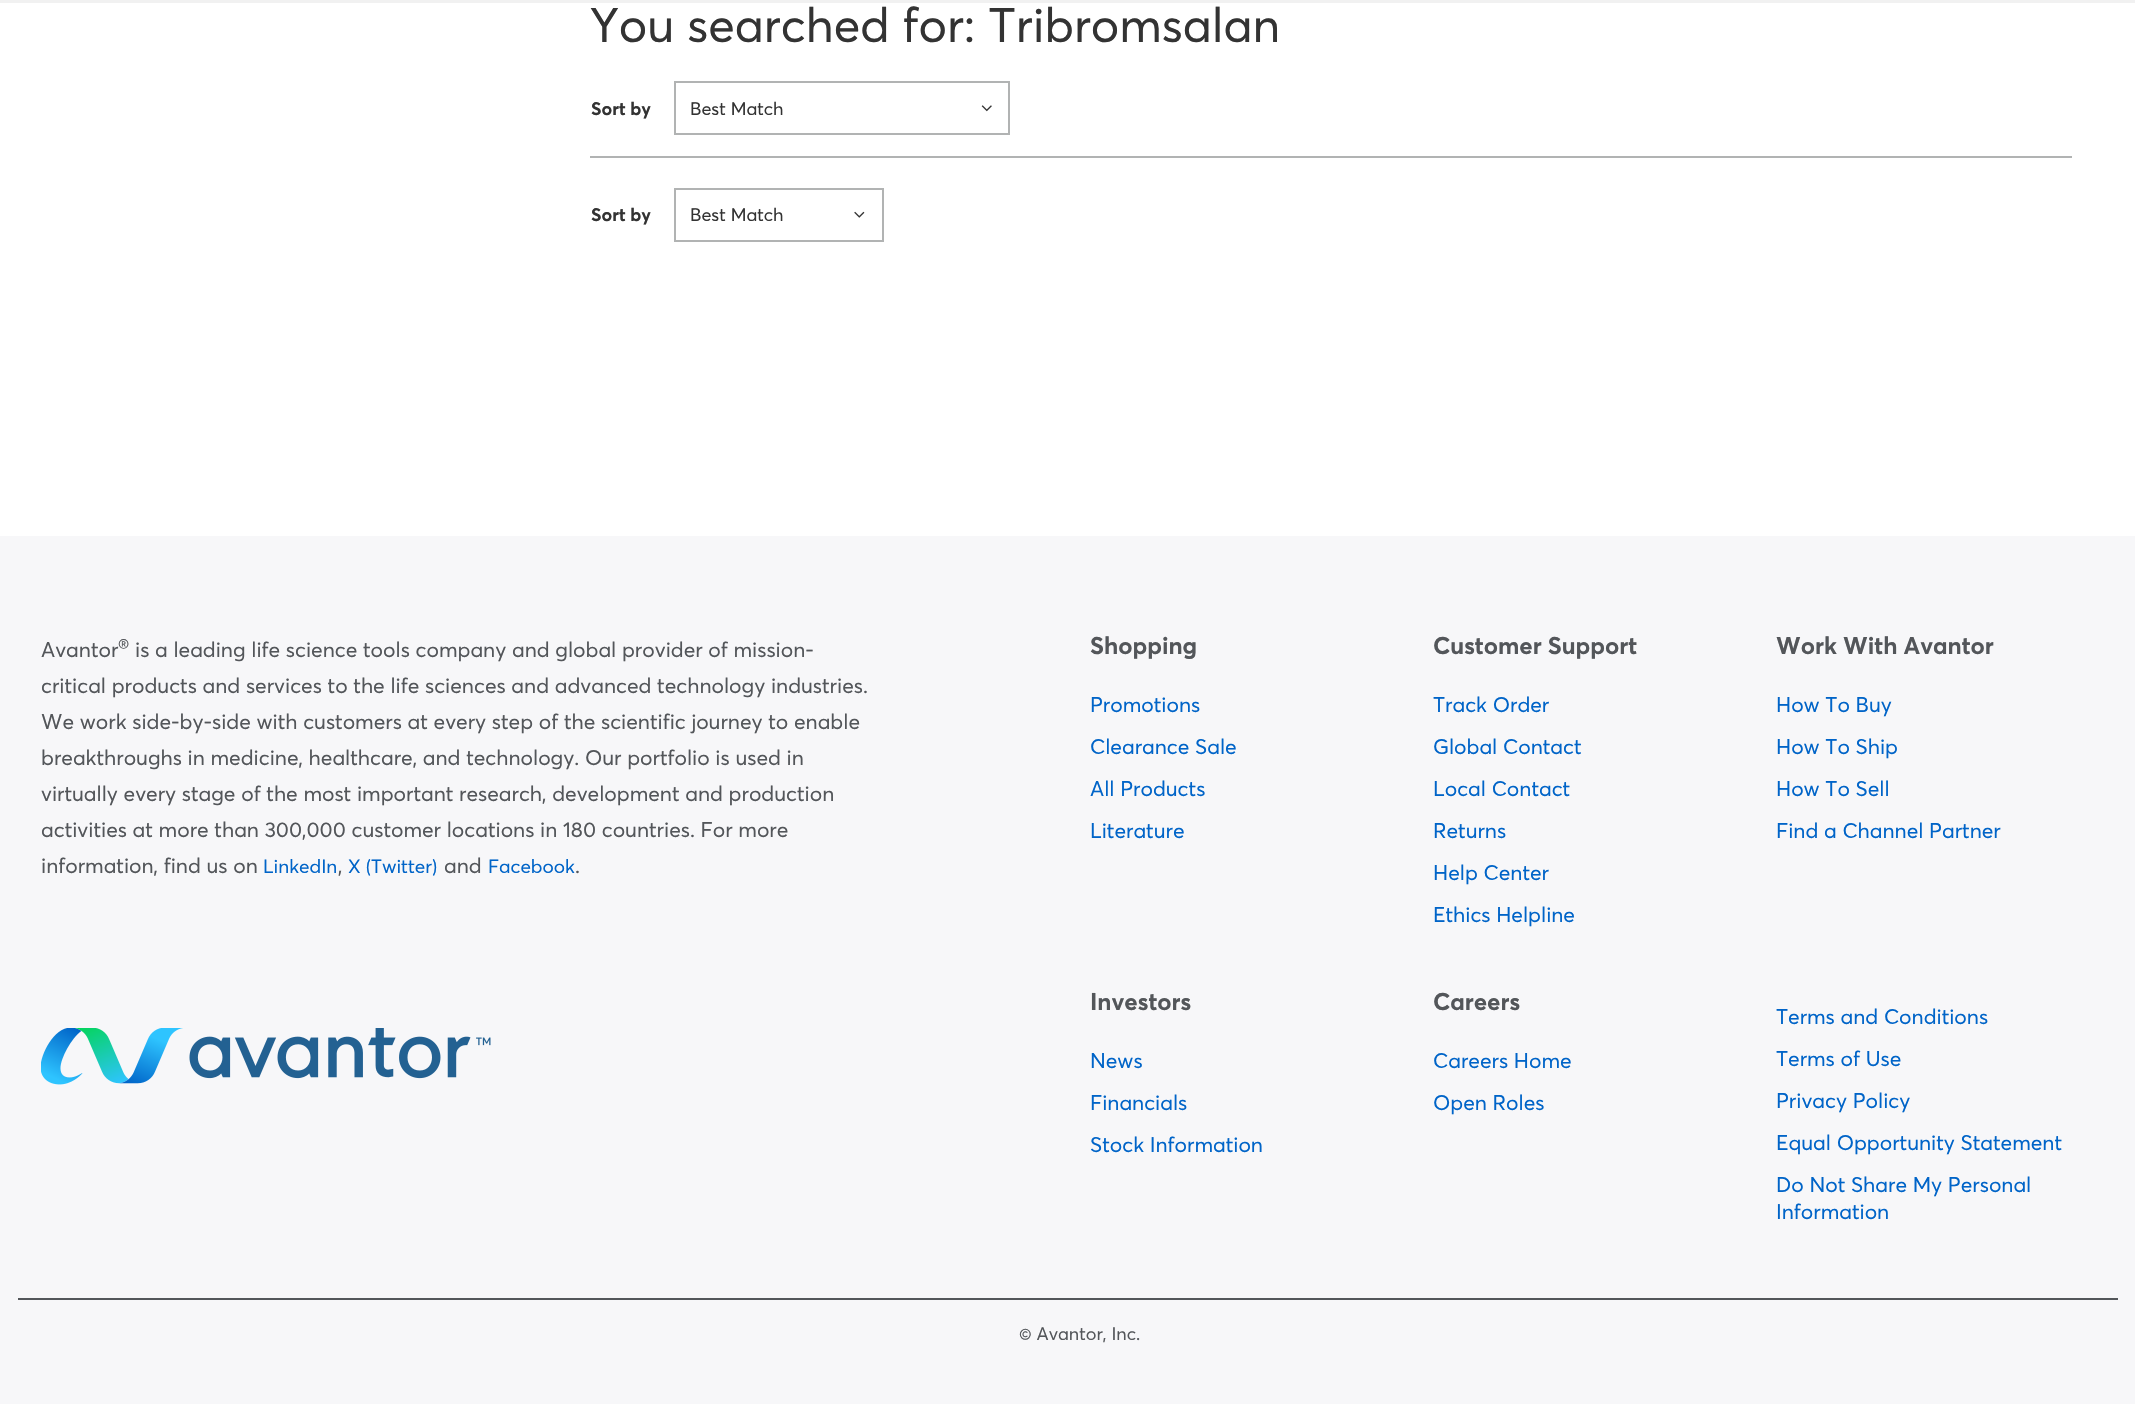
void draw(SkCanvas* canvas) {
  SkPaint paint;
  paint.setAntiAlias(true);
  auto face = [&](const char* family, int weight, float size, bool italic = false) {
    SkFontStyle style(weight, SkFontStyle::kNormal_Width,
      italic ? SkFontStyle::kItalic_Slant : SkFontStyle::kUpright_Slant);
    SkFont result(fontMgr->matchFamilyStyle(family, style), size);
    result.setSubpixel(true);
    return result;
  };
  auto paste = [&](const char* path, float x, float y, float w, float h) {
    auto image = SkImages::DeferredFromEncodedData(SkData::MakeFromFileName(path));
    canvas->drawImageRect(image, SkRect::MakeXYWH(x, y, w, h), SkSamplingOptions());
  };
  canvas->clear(0xffffffff);
  paint.setColor(0xfff1f1f1);
  canvas->drawRect(SkRect::MakeXYWH(0, 0, 2135, 3), paint);
  paint.setColor(0xffb1b3b3);
  canvas->drawRect(SkRect::MakeXYWH(590, 156, 1482, 2), paint);
  paint.setStroke(true);
  paint.setStrokeWidth(2);
  canvas->drawRect(SkRect::MakeXYWH(675, 82, 334, 52), paint);
  paste("img/1.png", 981, 105, 11, 7);
  canvas->drawRect(SkRect::MakeXYWH(675, 189, 208, 52), paint);
  paste("img/2.png", 854, 211, 11, 7);
  paint.setStroke(false);
  paint.setColor(0xfff7f7f9);
  canvas->drawRect(SkRect::MakeXYWH(0, 536, 2135, 868), paint);
  paint.setColor(0xff53565a);
  canvas->drawRect(SkRect::MakeXYWH(18, 1298, 2100, 2), paint);
  paste("img/3.png", 41, 1028, 450, 57);
  auto f0 = face("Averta", 400, 48);
  paint.setColor(0xff333333);
  canvas->drawString("You searched for: Tribromsalan", 590, 42, f0, paint);
  auto f1 = face("Averta", 700, 18);
  canvas->drawString("Sort by", 591, 115, f1, paint);
  auto f2 = face("Averta", 400, 18);
  canvas->drawString("Best Match", 690, 115, f2, paint);
  canvas->drawString("Sort by", 591, 221, f1, paint);
  canvas->drawString("Best Match", 690, 221, f2, paint);
  auto f3 = face("Averta", 400, 21);
  paint.setColor(0xff53565a);
  canvas->drawString("Avantor", 41, 657, f3, paint);
  auto f4 = face("Averta", 400, 16);
  canvas->drawString("®", 118, 649, f4, paint);
  {
    const struct { const char* s; float x, y; } items[] = {
      {"is a leading life science tools company and global provider of mission-", 135, 657},
      {"critical products and services to the life sciences and advanced technology industries.", 41, 693},
      {"We work side-by-side with customers at every step of the scientific journey to enable", 41, 729},
      {"breakthroughs in medicine, healthcare, and technology. Our portfolio is used in", 41, 765},
      {"virtually every stage of the most important research, development and production", 41, 801},
      {"activities at more than 300,000 customer locations in 180 countries. For more", 41, 837},
      {"information, find us on", 41, 873},
    };
    for (auto [s, x, y] : items) {
      canvas->drawString(s, x, y, f3, paint);
    }
  }
  auto f5 = face("Averta", 400, 19);
  paint.setColor(0xff0064c8);
  canvas->drawString("LinkedIn", 263, 873, f5, paint);
  paint.setColor(0xff53565a);
  canvas->drawString(",", 338, 873, f3, paint);
  paint.setColor(0xff0064c8);
  canvas->drawString("X (Twitter)", 348, 873, f5, paint);
  paint.setColor(0xff53565a);
  canvas->drawString("and", 444, 873, f3, paint);
  paint.setColor(0xff0064c8);
  canvas->drawString("Facebook", 488, 873, f5, paint);
  paint.setColor(0xff53565a);
  canvas->drawString(".", 575, 873, f3, paint);
  auto f6 = face("Averta", 700, 24);
  canvas->drawString("Shopping", 1090, 654, f6, paint);
  paint.setColor(0xff0064c8);
  {
    const struct { const char* s; float x, y; } items[] = {
      {"Promotions", 1090, 712},
      {"Clearance Sale", 1090, 754},
      {"All Products", 1090, 796},
      {"Literature", 1090, 838},
    };
    for (auto [s, x, y] : items) {
      canvas->drawString(s, x, y, f3, paint);
    }
  }
  paint.setColor(0xff53565a);
  canvas->drawString("Customer Support", 1433, 654, f6, paint);
  paint.setColor(0xff0064c8);
  {
    const struct { const char* s; float x, y; } items[] = {
      {"Track Order", 1433, 712},
      {"Global Contact", 1433, 754},
      {"Local Contact", 1433, 796},
      {"Returns", 1433, 838},
      {"Help Center", 1433, 880},
      {"Ethics Helpline", 1433, 922},
    };
    for (auto [s, x, y] : items) {
      canvas->drawString(s, x, y, f3, paint);
    }
  }
  paint.setColor(0xff53565a);
  canvas->drawString("Work With Avantor", 1776, 654, f6, paint);
  paint.setColor(0xff0064c8);
  {
    const struct { const char* s; float x, y; } items[] = {
      {"How To Buy", 1776, 712},
      {"How To Ship", 1776, 754},
      {"How To Sell", 1776, 796},
      {"Find a Channel Partner", 1776, 838},
    };
    for (auto [s, x, y] : items) {
      canvas->drawString(s, x, y, f3, paint);
    }
  }
  paint.setColor(0xff53565a);
  canvas->drawString("Investors", 1090, 1010, f6, paint);
  paint.setColor(0xff0064c8);
  {
    const struct { const char* s; float x, y; } items[] = {
      {"News", 1090, 1068},
      {"Financials", 1090, 1110},
      {"Stock Information", 1090, 1152},
    };
    for (auto [s, x, y] : items) {
      canvas->drawString(s, x, y, f3, paint);
    }
  }
  paint.setColor(0xff53565a);
  canvas->drawString("Careers", 1433, 1010, f6, paint);
  paint.setColor(0xff0064c8);
  {
    const struct { const char* s; float x, y; } items[] = {
      {"Careers Home", 1433, 1068},
      {"Open Roles", 1433, 1110},
      {"Terms and Conditions", 1776, 1024},
      {"Terms of Use", 1776, 1066},
      {"Privacy Policy", 1776, 1108},
      {"Equal Opportunity Statement", 1776, 1150},
      {"Do Not Share My Personal", 1776, 1192},
      {"Information", 1776, 1219},
    };
    for (auto [s, x, y] : items) {
      canvas->drawString(s, x, y, f3, paint);
    }
  }
  paint.setColor(0xff53565a);
  canvas->drawString("© Avantor, Inc.", 1019, 1340, f2, paint);
}
